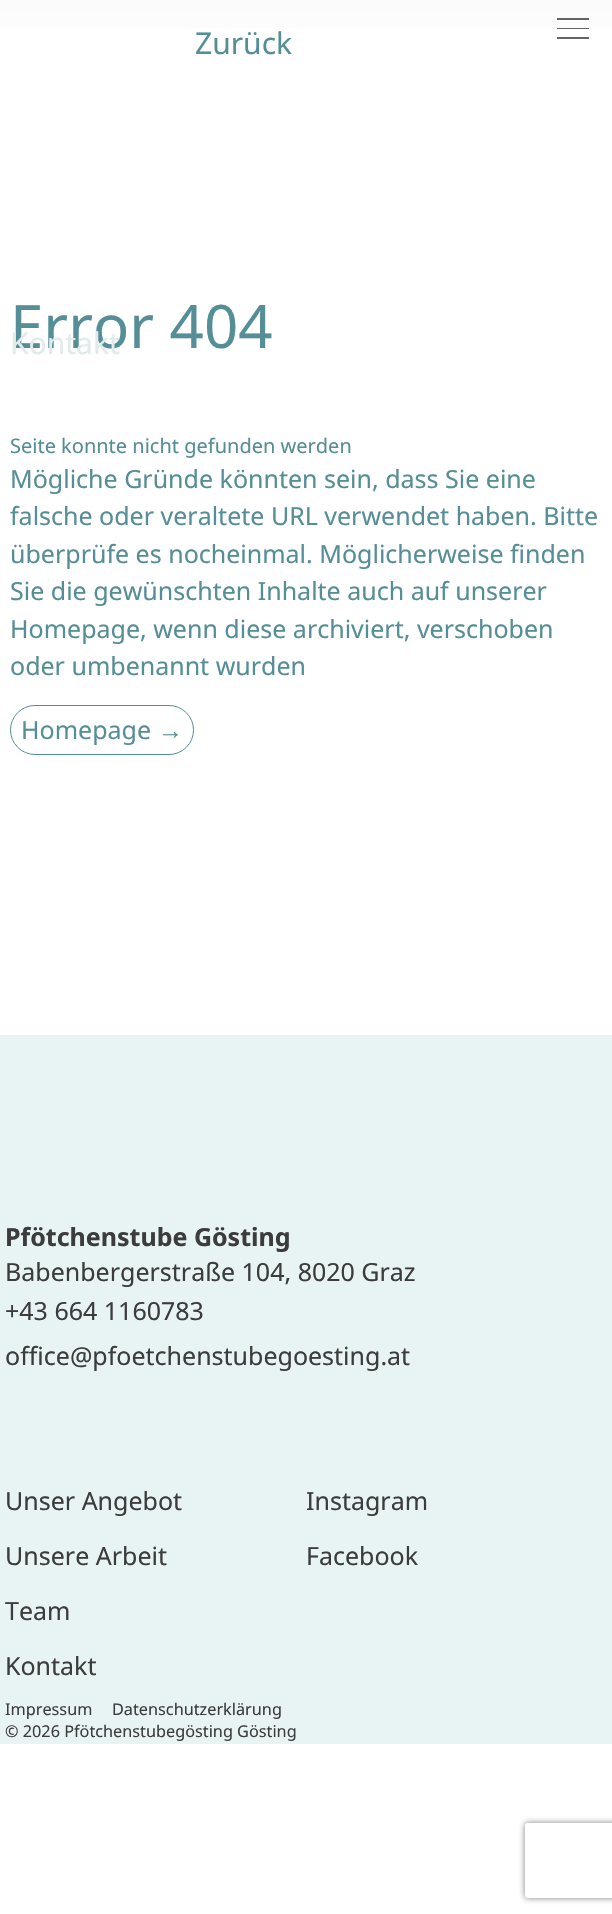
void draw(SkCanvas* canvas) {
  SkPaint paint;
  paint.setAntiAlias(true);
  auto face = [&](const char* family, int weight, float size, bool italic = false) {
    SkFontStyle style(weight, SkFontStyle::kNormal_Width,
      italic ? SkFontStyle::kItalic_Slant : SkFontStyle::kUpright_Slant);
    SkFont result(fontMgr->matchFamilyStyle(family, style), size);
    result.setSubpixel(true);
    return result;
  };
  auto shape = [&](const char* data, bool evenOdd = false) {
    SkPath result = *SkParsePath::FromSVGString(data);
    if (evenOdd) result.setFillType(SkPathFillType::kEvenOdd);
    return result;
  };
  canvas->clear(0xffffffff);
  {
    const SkColor colors[] = {0xffffffff, 0xfffbfbfb, 0xfffbfbfc};
    const float stops[] = {0, 0.93f, 0.93f};
    const SkPoint ends[] = {{306, 66}, {306, 0}};
    paint.setShader(SkGradientShader::MakeLinear(ends, colors, stops, 3, SkTileMode::kClamp));
    paint.setAlpha(255);
  }
  canvas->drawRect(SkRect::MakeXYWH(0, 0, 612, 28), paint);
  paint.setShader(nullptr);
  {
    const struct { float x, y, w, h; SkColor color; } items[] = {
      {557, 18, 32, 2, 0xff646464},
      {557, 28, 32, 1, 0xff646464},
      {557, 37, 32, 2, 0xff646464},
    };
    for (auto [x, y, w, h, color] : items) {
      paint.setColor(color);
      canvas->drawRect(SkRect::MakeXYWH(x, y, w, h), paint);
    }
  }
  paint.setStroke(true);
  paint.setStrokeWidth(1);
  paint.setColor(0xff558e96);
  canvas->drawRoundRect(SkRect::MakeXYWH(10.5f, 705.5f, 183, 49), 24.5f, 24.5f, paint);
  paint.setStroke(false);
  paint.setColor(0xffe8f4f4);
  canvas->drawRect(SkRect::MakeXYWH(0, 1035, 612, 709), paint);
  canvas->save();
  canvas->clipPath(shape("M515 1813H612V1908H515ZM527.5 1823H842.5C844 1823 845 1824 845 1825.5V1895.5C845 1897 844 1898 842.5 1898H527.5C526 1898 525 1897 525 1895.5V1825.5C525 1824 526 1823 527.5 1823Z", true), true);
  paint.setColor(0xff808080);
  paint.setMaskFilter(SkMaskFilter::MakeBlur(kNormal_SkBlurStyle, 3));
  canvas->drawRoundRect(SkRect::MakeXYWH(525, 1823, 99, 75), 2.5f, 2.5f, paint);
  paint.setMaskFilter(nullptr);
  canvas->restore();
  auto f0 = face("Noto Sans", 400, 30);
  paint.setColor(0xff558e96);
  canvas->drawString("Zurück", 195, 54, f0, paint);
  auto f1 = face("Noto Sans", 400, 60);
  canvas->drawString("Error 404", 10, 348, f1, paint);
  paint.setColor(0xffe1ebec);
  canvas->drawString("Kontakt", 10, 354, f0, paint);
  auto f2 = face("Noto Sans", 400, 20);
  paint.setColor(0xff558e96);
  canvas->drawString("Seite konnte nicht gefunden werden", 10, 453, f2, paint);
  auto f3 = face("Noto Sans", 400, 25);
  {
    const struct { const char* s; float x, y; } items[] = {
      {"Mögliche Gründe könnten sein, dass Sie eine", 10, 488},
      {"falsche oder veraltete URL verwendet haben. Bitte", 10, 525},
      {"überprüfe es nocheinmal. Möglicherweise finden", 10, 563},
      {"Sie die gewünschten Inhalte auch auf unserer", 10, 600},
      {"Homepage, wenn diese archiviert, verschoben", 10, 638},
      {"oder umbenannt wurden", 10, 675},
      {"Homepage", 21, 739},
    };
    for (auto [s, x, y] : items) {
      canvas->drawString(s, x, y, f3, paint);
    }
  }
  auto f4 = face("Liberation Sans", 400, 25);
  canvas->drawString("→", 158, 739, f4, paint);
  auto f5 = face("Noto Sans", 700, 25);
  paint.setColor(0xff3c3c3c);
  canvas->drawString("Pfötchenstube Gösting", 5, 1246, f5, paint);
  {
    const struct { const char* s; float x, y; } items[] = {
      {"Babenbergerstraße 104, 8020 Graz", 5, 1281},
      {"+43 664 1160783", 5, 1320},
      {"office@pfoetchenstubegoesting.at", 5, 1365},
      {"Unser Angebot", 5, 1510},
      {"Unsere Arbeit", 5, 1565},
      {"Team", 5, 1620},
      {"Kontakt", 5, 1675},
      {"Instagram", 306, 1510},
      {"Facebook", 306, 1565},
    };
    for (auto [s, x, y] : items) {
      canvas->drawString(s, x, y, f3, paint);
    }
  }
  auto f6 = face("Noto Sans", 400, 16.25f);
  {
    const struct { const char* s; float x, y; } items[] = {
      {"Impressum", 5, 1715},
      {"Datenschutzerklärung", 112, 1715},
      {"© 2026 Pfötchenstubegösting Gösting", 5, 1737},
    };
    for (auto [s, x, y] : items) {
      canvas->drawString(s, x, y, f6, paint);
    }
  }
}
